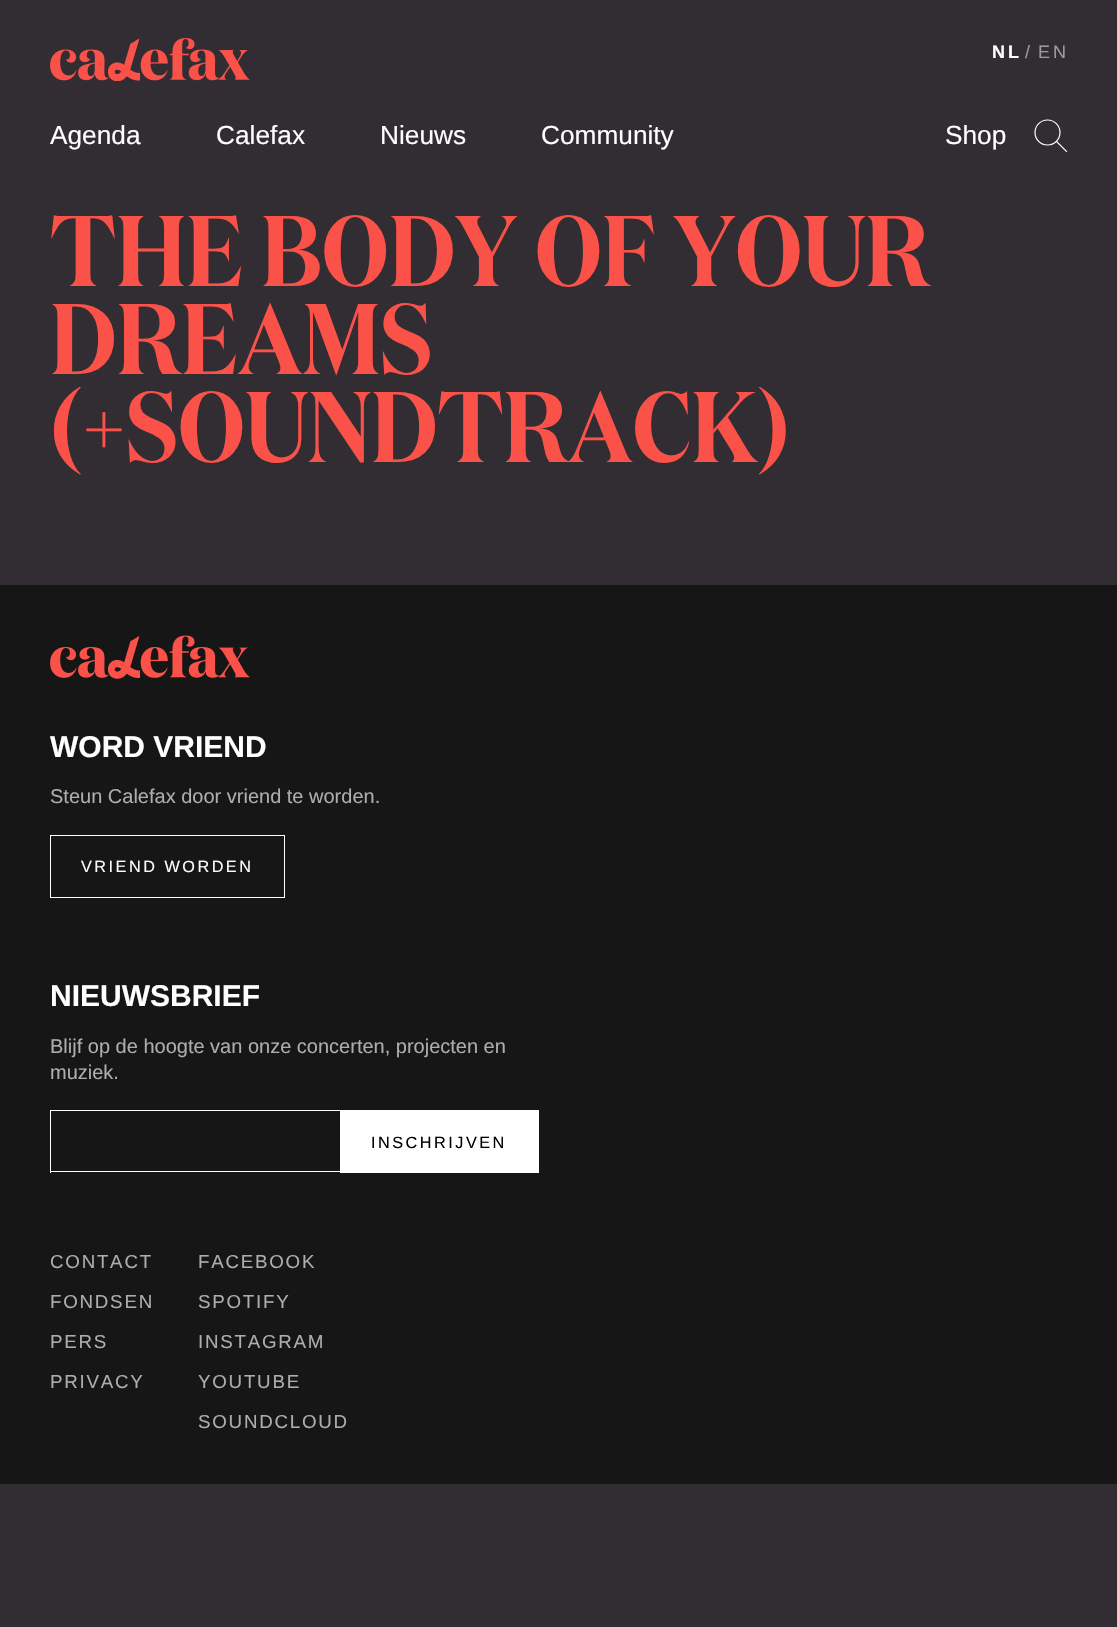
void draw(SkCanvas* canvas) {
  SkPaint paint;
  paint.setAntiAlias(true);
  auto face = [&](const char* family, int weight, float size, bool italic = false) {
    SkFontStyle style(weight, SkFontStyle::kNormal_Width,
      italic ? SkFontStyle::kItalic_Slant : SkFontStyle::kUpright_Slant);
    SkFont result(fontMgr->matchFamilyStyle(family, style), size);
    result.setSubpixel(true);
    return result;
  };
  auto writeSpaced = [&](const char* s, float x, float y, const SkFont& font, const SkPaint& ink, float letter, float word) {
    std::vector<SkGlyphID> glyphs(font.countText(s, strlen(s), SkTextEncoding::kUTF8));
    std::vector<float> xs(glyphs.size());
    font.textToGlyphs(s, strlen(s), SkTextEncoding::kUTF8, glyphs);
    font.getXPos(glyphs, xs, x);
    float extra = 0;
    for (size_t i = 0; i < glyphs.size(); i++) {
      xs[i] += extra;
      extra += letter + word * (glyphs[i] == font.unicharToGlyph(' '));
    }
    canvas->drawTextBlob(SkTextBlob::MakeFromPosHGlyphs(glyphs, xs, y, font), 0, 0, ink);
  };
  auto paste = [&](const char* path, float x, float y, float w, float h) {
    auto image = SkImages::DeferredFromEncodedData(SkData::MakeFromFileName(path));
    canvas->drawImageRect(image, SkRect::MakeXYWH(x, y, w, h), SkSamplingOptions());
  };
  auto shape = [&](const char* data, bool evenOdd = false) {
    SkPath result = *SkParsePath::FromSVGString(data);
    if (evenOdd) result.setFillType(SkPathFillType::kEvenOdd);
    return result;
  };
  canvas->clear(0xff322c33);
  paste("img/1.png", 50, 38, 200, 43);
  paint.setStroke(true);
  paint.setStrokeWidth(1.2f);
  paint.setColor(0xffffffff);
  canvas->drawCircle(1047.5f, 132.5f, 12.5f, paint);
  paint.setStrokeCap(SkPaint::kSquare_Cap);
  canvas->drawPath(shape("M1056.5 141.5L1066.5 151.5"), paint);
  paint.setStroke(false);
  paint.setColor(0xff161616);
  canvas->drawRect(SkRect::MakeXYWH(0, 585, 1117, 899), paint);
  paint.setStroke(true);
  paint.setStrokeWidth(1);
  paint.setStrokeCap(SkPaint::kButt_Cap);
  paint.setColor(0xffffffff);
  canvas->drawRect(SkRect::MakeXYWH(50.5f, 835.5f, 234, 62), paint);
  paint.setStroke(false);
  {
    const struct { float x, y, w, h; SkColor color; } items[] = {
      {50, 1110, 290, 1, 0xffffffff},
      {50, 1171, 290, 1, 0xffffffff},
      {50, 1110, 1, 63, 0xffffffff},
      {340, 1110, 199, 63, 0xffffffff},
    };
    for (auto [x, y, w, h, color] : items) {
      paint.setColor(color);
      canvas->drawRect(SkRect::MakeXYWH(x, y, w, h), paint);
    }
  }
  paste("img/2.png", 50, 635, 200, 44);
  auto f0 = face("Liberation Sans", 700, 18);
  writeSpaced("NL", 992, 58, f0, paint, 3, 0);
  auto f1 = face("Liberation Sans", 400, 18);
  paint.setColor(0xff9b9b9b);
  writeSpaced("/", 1025, 58, f1, paint, 3, 0);
  writeSpaced("EN", 1038, 58, f1, paint, 3, 0);
  auto f2 = face("Liberation Sans", 400, 26.25f);
  paint.setColor(0xffffffff);
  {
    const struct { const char* s; float x, y; } items[] = {
      {"Agenda", 50, 144},
      {"Calefax", 216, 144},
      {"Nieuws", 380, 144},
      {"Community", 541, 144},
      {"Shop", 945, 144},
    };
    for (auto [s, x, y] : items) {
      canvas->drawString(s, x, y, f2, paint);
    }
  }
  auto f3 = face("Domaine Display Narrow", 600, 100);
  paint.setColor(0xfffa5149);
  {
    const struct { const char* s; float x, y; } items[] = {
      {"THE BODY OF YOUR", 50, 286},
      {"DREAMS", 50, 374},
      {"(+SOUNDTRACK)", 50, 462},
    };
    for (auto [s, x, y] : items) {
      canvas->drawString(s, x, y, f3, paint);
    }
  }
  auto f4 = face("Liberation Sans", 700, 30);
  paint.setColor(0xffffffff);
  canvas->drawString("WORD VRIEND", 50, 757, f4, paint);
  auto f5 = face("Liberation Sans", 400, 20);
  paint.setColor(0xffadadad);
  canvas->drawString("Steun Calefax door vriend te worden.", 50, 803, f5, paint);
  auto f6 = face("Liberation Sans", 400, 16.25f);
  paint.setColor(0xffffffff);
  writeSpaced("VRIEND WORDEN", 81, 872, f6, paint, 2.5f, 0);
  canvas->drawString("NIEUWSBRIEF", 50, 1006, f4, paint);
  paint.setColor(0xffadadad);
  canvas->drawString("Blijf op de hoogte van onze concerten, projecten en", 50, 1053, f5, paint);
  canvas->drawString("muziek.", 50, 1079, f5, paint);
  paint.setColor(0xff000000);
  writeSpaced("INSCHRIJVEN", 371, 1148, f6, paint, 2.5f, 0);
  auto f7 = face("Liberation Sans", 400, 18.75f);
  paint.setColor(0xffadadad);
  {
    const struct { const char* s; float x, y; } items[] = {
      {"CONTACT", 50, 1268},
      {"FONDSEN", 50, 1308},
      {"PERS", 50, 1348},
      {"PRIVACY", 50, 1388},
      {"FACEBOOK", 198, 1268},
      {"SPOTIFY", 198, 1308},
      {"INSTAGRAM", 198, 1348},
      {"YOUTUBE", 198, 1388},
      {"SOUNDCLOUD", 198, 1428},
    };
    for (auto [s, x, y] : items) {
      writeSpaced(s, x, y, f7, paint, 1.75f, 0);
    }
  }
}
